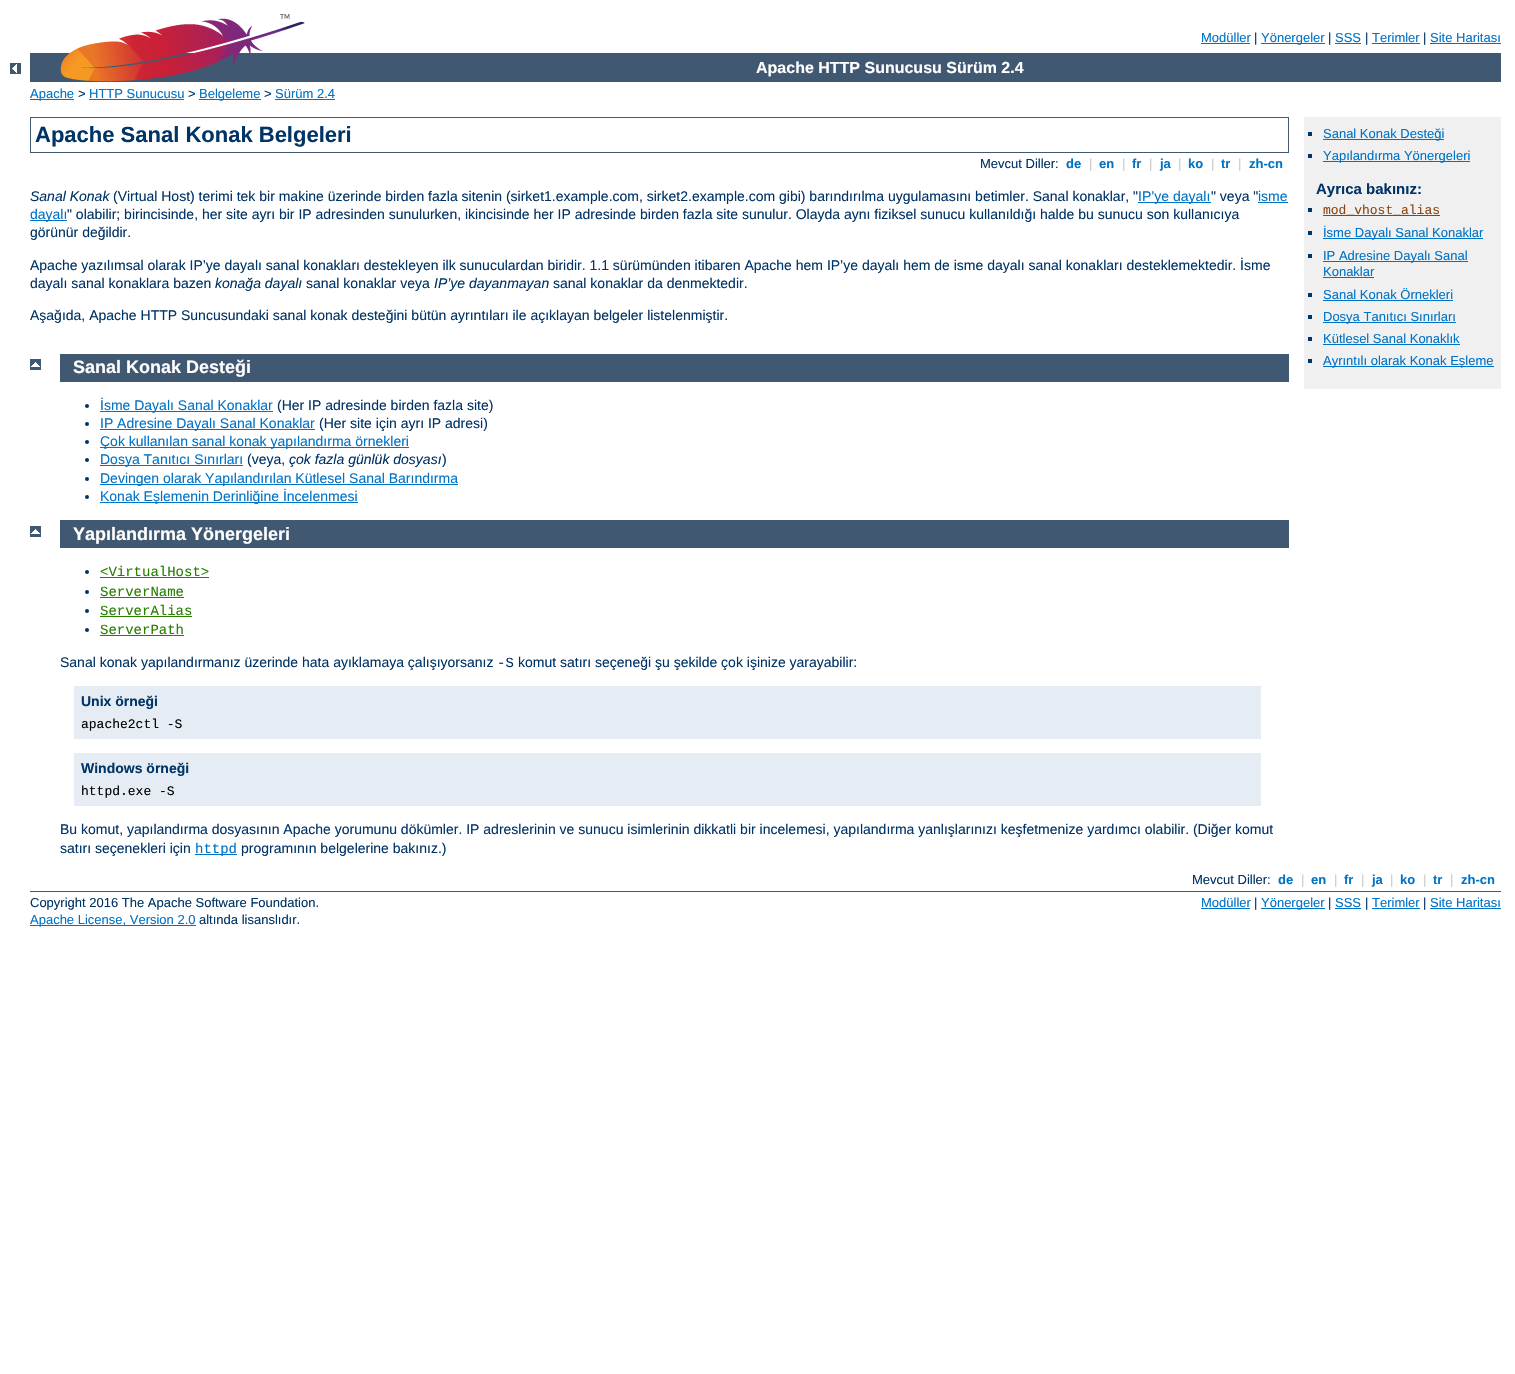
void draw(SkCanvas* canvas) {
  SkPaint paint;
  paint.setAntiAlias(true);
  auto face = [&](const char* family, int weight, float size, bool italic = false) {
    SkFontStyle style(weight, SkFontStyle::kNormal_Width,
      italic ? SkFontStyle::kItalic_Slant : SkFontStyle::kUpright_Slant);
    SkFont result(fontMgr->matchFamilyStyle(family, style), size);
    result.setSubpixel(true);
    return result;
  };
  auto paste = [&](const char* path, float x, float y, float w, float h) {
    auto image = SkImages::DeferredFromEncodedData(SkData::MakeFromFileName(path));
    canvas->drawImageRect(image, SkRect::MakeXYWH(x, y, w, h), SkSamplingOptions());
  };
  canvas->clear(0xffffffff);
  paste("img/1.png", 10, 63, 11, 11);
  paint.setColor(0xff405871);
  canvas->drawRect(SkRect::MakeXYWH(30, 53, 1471, 29), paint);
  paste("img/2.png", 60, 14, 245, 68);
  {
    const struct { float x, y, w, h; SkColor color; } items[] = {
      {1201, 43, 49, 1, 0xff0073c7},
      {1261, 43, 64, 1, 0xff0073c7},
      {1335, 43, 26, 1, 0xff0073c7},
      {1372, 43, 48, 1, 0xff0073c7},
      {1430, 43, 71, 1, 0xff0073c7},
      {30, 99, 44, 1, 0xff0073c7},
      {89, 99, 95, 1, 0xff0073c7},
      {199, 99, 62, 1, 0xff0073c7},
      {275, 99, 60, 1, 0xff0073c7},
    };
    for (auto [x, y, w, h, color] : items) {
      paint.setColor(color);
      canvas->drawRect(SkRect::MakeXYWH(x, y, w, h), paint);
    }
  }
  paint.setStroke(true);
  paint.setStrokeWidth(1);
  paint.setColor(0xff405871);
  canvas->drawRect(SkRect::MakeXYWH(30.5f, 117.5f, 1258, 35), paint);
  paint.setStroke(false);
  {
    const struct { float x, y, w, h; SkColor color; } items[] = {
      {1138, 202, 73, 1, 0xff0073c7},
      {1258, 202, 30, 1, 0xff0073c7},
      {30, 220, 37, 1, 0xff0073c7},
      {1304, 117, 197, 272, 0xfff0f0f0},
      {1308, 132, 4, 4, 0xff003366},
      {1323, 139, 121, 1, 0xff0073c7},
      {1308, 154, 4, 4, 0xff003366},
      {1323, 161, 147, 1, 0xff0073c7},
      {1308, 208, 4, 4, 0xff003366},
      {1323, 215, 117, 1, 0xff8b4513},
      {1308, 231, 4, 4, 0xff003366},
      {1323, 238, 160, 1, 0xff0073c7},
      {1308, 254, 4, 4, 0xff003366},
      {1323, 261, 145, 1, 0xff0073c7},
      {1323, 277, 51, 1, 0xff0073c7},
      {1308, 293, 4, 4, 0xff003366},
      {1323, 300, 130, 1, 0xff0073c7},
      {1308, 315, 4, 4, 0xff003366},
      {1323, 322, 133, 1, 0xff0073c7},
      {1308, 337, 4, 4, 0xff003366},
      {1323, 344, 137, 1, 0xff0073c7},
      {1308, 359, 4, 4, 0xff003366},
      {1323, 366, 171, 1, 0xff0073c7},
    };
    for (auto [x, y, w, h, color] : items) {
      paint.setColor(color);
      canvas->drawRect(SkRect::MakeXYWH(x, y, w, h), paint);
    }
  }
  paste("img/3.png", 30, 359, 11, 11);
  paint.setColor(0xff405871);
  canvas->drawRect(SkRect::MakeXYWH(60, 354, 1229, 28), paint);
  paint.setColor(0xff003366);
  canvas->drawCircle(87, 406, 2, paint);
  paint.setColor(0xff0073c7);
  canvas->drawRect(SkRect::MakeXYWH(100, 411, 173, 1), paint);
  paint.setColor(0xff003366);
  canvas->drawCircle(87, 424, 2, paint);
  paint.setColor(0xff0073c7);
  canvas->drawRect(SkRect::MakeXYWH(100, 429, 215, 1), paint);
  paint.setColor(0xff003366);
  canvas->drawCircle(87, 442, 2, paint);
  paint.setColor(0xff0073c7);
  canvas->drawRect(SkRect::MakeXYWH(100, 447, 309, 1), paint);
  paint.setColor(0xff003366);
  canvas->drawCircle(87, 460, 2, paint);
  paint.setColor(0xff0073c7);
  canvas->drawRect(SkRect::MakeXYWH(100, 465, 143, 1), paint);
  paint.setColor(0xff003366);
  canvas->drawCircle(87, 479, 2, paint);
  paint.setColor(0xff0073c7);
  canvas->drawRect(SkRect::MakeXYWH(100, 484, 358, 1), paint);
  paint.setColor(0xff003366);
  canvas->drawCircle(87, 497, 2, paint);
  paint.setColor(0xff0073c7);
  canvas->drawRect(SkRect::MakeXYWH(100, 502, 258, 1), paint);
  paste("img/3.png", 30, 526, 11, 11);
  paint.setColor(0xff405871);
  canvas->drawRect(SkRect::MakeXYWH(60, 520, 1229, 28), paint);
  paint.setColor(0xff003366);
  canvas->drawCircle(87, 572, 2, paint);
  paint.setColor(0xff287f00);
  canvas->drawRect(SkRect::MakeXYWH(100, 577, 109, 1), paint);
  paint.setColor(0xff003366);
  canvas->drawCircle(87, 592, 2, paint);
  paint.setColor(0xff287f00);
  canvas->drawRect(SkRect::MakeXYWH(100, 597, 84, 1), paint);
  paint.setColor(0xff003366);
  canvas->drawCircle(87, 611, 2, paint);
  paint.setColor(0xff287f00);
  canvas->drawRect(SkRect::MakeXYWH(100, 616, 92, 1), paint);
  paint.setColor(0xff003366);
  canvas->drawCircle(87, 630, 2, paint);
  {
    const struct { float x, y, w, h; SkColor color; } items[] = {
      {100, 635, 84, 1, 0xff287f00},
      {74, 686, 1187, 53, 0xffe5ecf3},
      {74, 753, 1187, 53, 0xffe5ecf3},
      {195, 854, 42, 1, 0xff0073c7},
      {30, 891, 1471, 1, 0xff405871},
      {30, 925, 166, 1, 0xff0073c7},
      {1201, 908, 49, 1, 0xff0073c7},
      {1261, 908, 64, 1, 0xff0073c7},
      {1335, 908, 26, 1, 0xff0073c7},
      {1372, 908, 48, 1, 0xff0073c7},
      {1430, 908, 71, 1, 0xff0073c7},
    };
    for (auto [x, y, w, h, color] : items) {
      paint.setColor(color);
      canvas->drawRect(SkRect::MakeXYWH(x, y, w, h), paint);
    }
  }
  auto f0 = face("Liberation Sans", 400, 13);
  canvas->drawString("Modüller", 1201, 42, f0, paint);
  paint.setColor(0xff003366);
  canvas->drawString("|", 1254, 42, f0, paint);
  paint.setColor(0xff0073c7);
  canvas->drawString("Yönergeler", 1261, 42, f0, paint);
  paint.setColor(0xff003366);
  canvas->drawString("|", 1328, 42, f0, paint);
  paint.setColor(0xff0073c7);
  canvas->drawString("SSS", 1335, 42, f0, paint);
  paint.setColor(0xff003366);
  canvas->drawString("|", 1365, 42, f0, paint);
  paint.setColor(0xff0073c7);
  canvas->drawString("Terimler", 1372, 42, f0, paint);
  paint.setColor(0xff003366);
  canvas->drawString("|", 1423, 42, f0, paint);
  paint.setColor(0xff0073c7);
  canvas->drawString("Site Haritası", 1430, 42, f0, paint);
  auto f1 = face("Liberation Sans", 700, 16);
  paint.setColor(0xffffffff);
  canvas->drawString("Apache HTTP Sunucusu Sürüm 2.4", 756, 73, f1, paint);
  paint.setColor(0xff0073c7);
  canvas->drawString("Apache", 30, 98, f0, paint);
  paint.setColor(0xff003366);
  canvas->drawString(">", 78, 98, f0, paint);
  paint.setColor(0xff0073c7);
  canvas->drawString("HTTP Sunucusu", 89, 98, f0, paint);
  paint.setColor(0xff003366);
  canvas->drawString(">", 188, 98, f0, paint);
  paint.setColor(0xff0073c7);
  canvas->drawString("Belgeleme", 199, 98, f0, paint);
  paint.setColor(0xff003366);
  canvas->drawString(">", 264, 98, f0, paint);
  paint.setColor(0xff0073c7);
  canvas->drawString("Sürüm 2.4", 275, 98, f0, paint);
  auto f2 = face("Liberation Sans", 700, 22);
  paint.setColor(0xff003366);
  canvas->drawString("Apache Sanal Konak Belgeleri", 35, 142, f2, paint);
  canvas->drawString("Mevcut Diller:", 980, 168, f0, paint);
  auto f3 = face("Liberation Sans", 700, 13);
  paint.setColor(0xff0073c7);
  canvas->drawString("de", 1066, 168, f3, paint);
  paint.setColor(0xffcccccc);
  canvas->drawString("|", 1089, 168, f0, paint);
  paint.setColor(0xff0073c7);
  canvas->drawString("en", 1099, 168, f3, paint);
  paint.setColor(0xffcccccc);
  canvas->drawString("|", 1122, 168, f0, paint);
  paint.setColor(0xff0073c7);
  canvas->drawString("fr", 1132, 168, f3, paint);
  paint.setColor(0xffcccccc);
  canvas->drawString("|", 1149, 168, f0, paint);
  paint.setColor(0xff0073c7);
  canvas->drawString("ja", 1160, 168, f3, paint);
  paint.setColor(0xffcccccc);
  canvas->drawString("|", 1178, 168, f0, paint);
  paint.setColor(0xff0073c7);
  canvas->drawString("ko", 1188, 168, f3, paint);
  paint.setColor(0xffcccccc);
  canvas->drawString("|", 1211, 168, f0, paint);
  paint.setColor(0xff0073c7);
  canvas->drawString("tr", 1221, 168, f3, paint);
  paint.setColor(0xffcccccc);
  canvas->drawString("|", 1238, 168, f0, paint);
  paint.setColor(0xff0073c7);
  canvas->drawString("zh-cn", 1249, 168, f3, paint);
  auto f4 = face("Liberation Sans", 400, 14, true);
  paint.setColor(0xff003366);
  canvas->drawString("Sanal Konak", 30, 201, f4, paint);
  auto f5 = face("Liberation Sans", 400, 14);
  canvas->drawString("(Virtual Host) terimi tek bir makine üzerinde birden fazla sitenin (sirket1.example.com, sirket2.example.com gibi) barındırılma uygulamasını betimler. Sanal konaklar, \"", 113, 201, f5, paint);
  paint.setColor(0xff0073c7);
  canvas->drawString("IP’ye dayalı", 1138, 201, f5, paint);
  paint.setColor(0xff003366);
  canvas->drawString("\" veya \"", 1211, 201, f5, paint);
  paint.setColor(0xff0073c7);
  canvas->drawString("isme", 1258, 201, f5, paint);
  canvas->drawString("dayalı", 30, 219, f5, paint);
  paint.setColor(0xff003366);
  {
    const struct { const char* s; float x, y; } items[] = {
      {"\" olabilir; birincisinde, her site ayrı bir IP adresinden sunulurken, ikincisinde her IP adresinde birden fazla site sunulur. Olayda aynı fiziksel sunucu kullanıldığı halde bu sunucu son kullanıcıya", 67, 219},
      {"görünür değildir.", 30, 237},
      {"Apache yazılımsal olarak IP’ye dayalı sanal konakları destekleyen ilk sunuculardan biridir. 1.1 sürümünden itibaren Apache hem IP’ye dayalı hem de isme dayalı sanal konakları desteklemektedir. İsme", 30, 270},
      {"dayalı sanal konaklara bazen", 30, 288},
    };
    for (auto [s, x, y] : items) {
      canvas->drawString(s, x, y, f5, paint);
    }
  }
  canvas->drawString("konağa dayalı", 215, 288, f4, paint);
  canvas->drawString("sanal konaklar veya", 306, 288, f5, paint);
  canvas->drawString("IP’ye dayanmayan", 434, 288, f4, paint);
  canvas->drawString("sanal konaklar da denmektedir.", 553, 288, f5, paint);
  canvas->drawString("Aşağıda, Apache HTTP Suncusundaki sanal konak desteğini bütün ayrıntıları ile açıklayan belgeler listelenmiştir.", 30, 320, f5, paint);
  paint.setColor(0xff0073c7);
  canvas->drawString("Sanal Konak Desteği", 1323, 138, f0, paint);
  canvas->drawString("Yapılandırma Yönergeleri", 1323, 160, f0, paint);
  auto f6 = face("Liberation Sans", 700, 15);
  paint.setColor(0xff003366);
  canvas->drawString("Ayrıca bakınız:", 1316, 194, f6, paint);
  auto f7 = face("Liberation Mono", 400, 13);
  paint.setColor(0xff8b4513);
  canvas->drawString("mod_vhost_alias", 1323, 214, f7, paint);
  paint.setColor(0xff0073c7);
  {
    const struct { const char* s; float x, y; } items[] = {
      {"İsme Dayalı Sanal Konaklar", 1323, 237},
      {"IP Adresine Dayalı Sanal", 1323, 260},
      {"Konaklar", 1323, 276},
      {"Sanal Konak Örnekleri", 1323, 299},
      {"Dosya Tanıtıcı Sınırları", 1323, 321},
      {"Kütlesel Sanal Konaklık", 1323, 343},
      {"Ayrıntılı olarak Konak Eşleme", 1323, 365},
    };
    for (auto [s, x, y] : items) {
      canvas->drawString(s, x, y, f0, paint);
    }
  }
  auto f8 = face("Liberation Sans", 700, 18);
  paint.setColor(0xffffffff);
  canvas->drawString("Sanal Konak Desteği", 73, 373, f8, paint);
  paint.setColor(0xff0073c7);
  canvas->drawString("İsme Dayalı Sanal Konaklar", 100, 410, f5, paint);
  paint.setColor(0xff003366);
  canvas->drawString("(Her IP adresinde birden fazla site)", 277, 410, f5, paint);
  paint.setColor(0xff0073c7);
  canvas->drawString("IP Adresine Dayalı Sanal Konaklar", 100, 428, f5, paint);
  paint.setColor(0xff003366);
  canvas->drawString("(Her site için ayrı IP adresi)", 319, 428, f5, paint);
  paint.setColor(0xff0073c7);
  canvas->drawString("Çok kullanılan sanal konak yapılandırma örnekleri", 100, 446, f5, paint);
  canvas->drawString("Dosya Tanıtıcı Sınırları", 100, 464, f5, paint);
  paint.setColor(0xff003366);
  canvas->drawString("(veya,", 247, 464, f5, paint);
  canvas->drawString("çok fazla günlük dosyası", 289, 464, f4, paint);
  canvas->drawString(")", 442, 464, f5, paint);
  paint.setColor(0xff0073c7);
  canvas->drawString("Devingen olarak Yapılandırılan Kütlesel Sanal Barındırma", 100, 483, f5, paint);
  canvas->drawString("Konak Eşlemenin Derinliğine İncelenmesi", 100, 501, f5, paint);
  paint.setColor(0xffffffff);
  canvas->drawString("Yapılandırma Yönergeleri", 73, 540, f8, paint);
  auto f9 = face("Liberation Mono", 400, 14);
  paint.setColor(0xff287f00);
  {
    const struct { const char* s; float x, y; } items[] = {
      {"<VirtualHost>", 100, 576},
      {"ServerName", 100, 596},
      {"ServerAlias", 100, 615},
      {"ServerPath", 100, 634},
    };
    for (auto [s, x, y] : items) {
      canvas->drawString(s, x, y, f9, paint);
    }
  }
  paint.setColor(0xff003366);
  canvas->drawString("Sanal konak yapılandırmanız üzerinde hata ayıklamaya çalışıyorsanız", 60, 667, f5, paint);
  canvas->drawString("-S", 497, 667, f9, paint);
  canvas->drawString("komut satırı seçeneği şu şekilde çok işinize yarayabilir:", 518, 667, f5, paint);
  auto f10 = face("Liberation Sans", 700, 14);
  canvas->drawString("Unix örneği", 81, 706, f10, paint);
  paint.setColor(0xff000000);
  canvas->drawString("apache2ctl -S", 81, 728, f7, paint);
  paint.setColor(0xff003366);
  canvas->drawString("Windows örneği", 81, 773, f10, paint);
  paint.setColor(0xff000000);
  canvas->drawString("httpd.exe -S", 81, 795, f7, paint);
  paint.setColor(0xff003366);
  canvas->drawString("Bu komut, yapılandırma dosyasının Apache yorumunu dökümler. IP adreslerinin ve sunucu isimlerinin dikkatli bir incelemesi, yapılandırma yanlışlarınızı keşfetmenize yardımcı olabilir. (Diğer komut", 60, 834, f5, paint);
  canvas->drawString("satırı seçenekleri için", 60, 853, f5, paint);
  paint.setColor(0xff0073c7);
  canvas->drawString("httpd", 195, 853, f9, paint);
  paint.setColor(0xff003366);
  canvas->drawString("programının belgelerine bakınız.)", 241, 853, f5, paint);
  canvas->drawString("Mevcut Diller:", 1192, 884, f0, paint);
  paint.setColor(0xff0073c7);
  canvas->drawString("de", 1278, 884, f3, paint);
  paint.setColor(0xffcccccc);
  canvas->drawString("|", 1301, 884, f0, paint);
  paint.setColor(0xff0073c7);
  canvas->drawString("en", 1311, 884, f3, paint);
  paint.setColor(0xffcccccc);
  canvas->drawString("|", 1334, 884, f0, paint);
  paint.setColor(0xff0073c7);
  canvas->drawString("fr", 1344, 884, f3, paint);
  paint.setColor(0xffcccccc);
  canvas->drawString("|", 1361, 884, f0, paint);
  paint.setColor(0xff0073c7);
  canvas->drawString("ja", 1372, 884, f3, paint);
  paint.setColor(0xffcccccc);
  canvas->drawString("|", 1390, 884, f0, paint);
  paint.setColor(0xff0073c7);
  canvas->drawString("ko", 1400, 884, f3, paint);
  paint.setColor(0xffcccccc);
  canvas->drawString("|", 1423, 884, f0, paint);
  paint.setColor(0xff0073c7);
  canvas->drawString("tr", 1433, 884, f3, paint);
  paint.setColor(0xffcccccc);
  canvas->drawString("|", 1450, 884, f0, paint);
  paint.setColor(0xff0073c7);
  canvas->drawString("zh-cn", 1461, 884, f3, paint);
  paint.setColor(0xff003366);
  canvas->drawString("Copyright 2016 The Apache Software Foundation.", 30, 907, f0, paint);
  paint.setColor(0xff0073c7);
  canvas->drawString("Apache License, Version 2.0", 30, 924, f0, paint);
  paint.setColor(0xff003366);
  canvas->drawString("altında lisanslıdır.", 199, 924, f0, paint);
  paint.setColor(0xff0073c7);
  canvas->drawString("Modüller", 1201, 907, f0, paint);
  paint.setColor(0xff003366);
  canvas->drawString("|", 1254, 907, f0, paint);
  paint.setColor(0xff0073c7);
  canvas->drawString("Yönergeler", 1261, 907, f0, paint);
  paint.setColor(0xff003366);
  canvas->drawString("|", 1328, 907, f0, paint);
  paint.setColor(0xff0073c7);
  canvas->drawString("SSS", 1335, 907, f0, paint);
  paint.setColor(0xff003366);
  canvas->drawString("|", 1365, 907, f0, paint);
  paint.setColor(0xff0073c7);
  canvas->drawString("Terimler", 1372, 907, f0, paint);
  paint.setColor(0xff003366);
  canvas->drawString("|", 1423, 907, f0, paint);
  paint.setColor(0xff0073c7);
  canvas->drawString("Site Haritası", 1430, 907, f0, paint);
}
